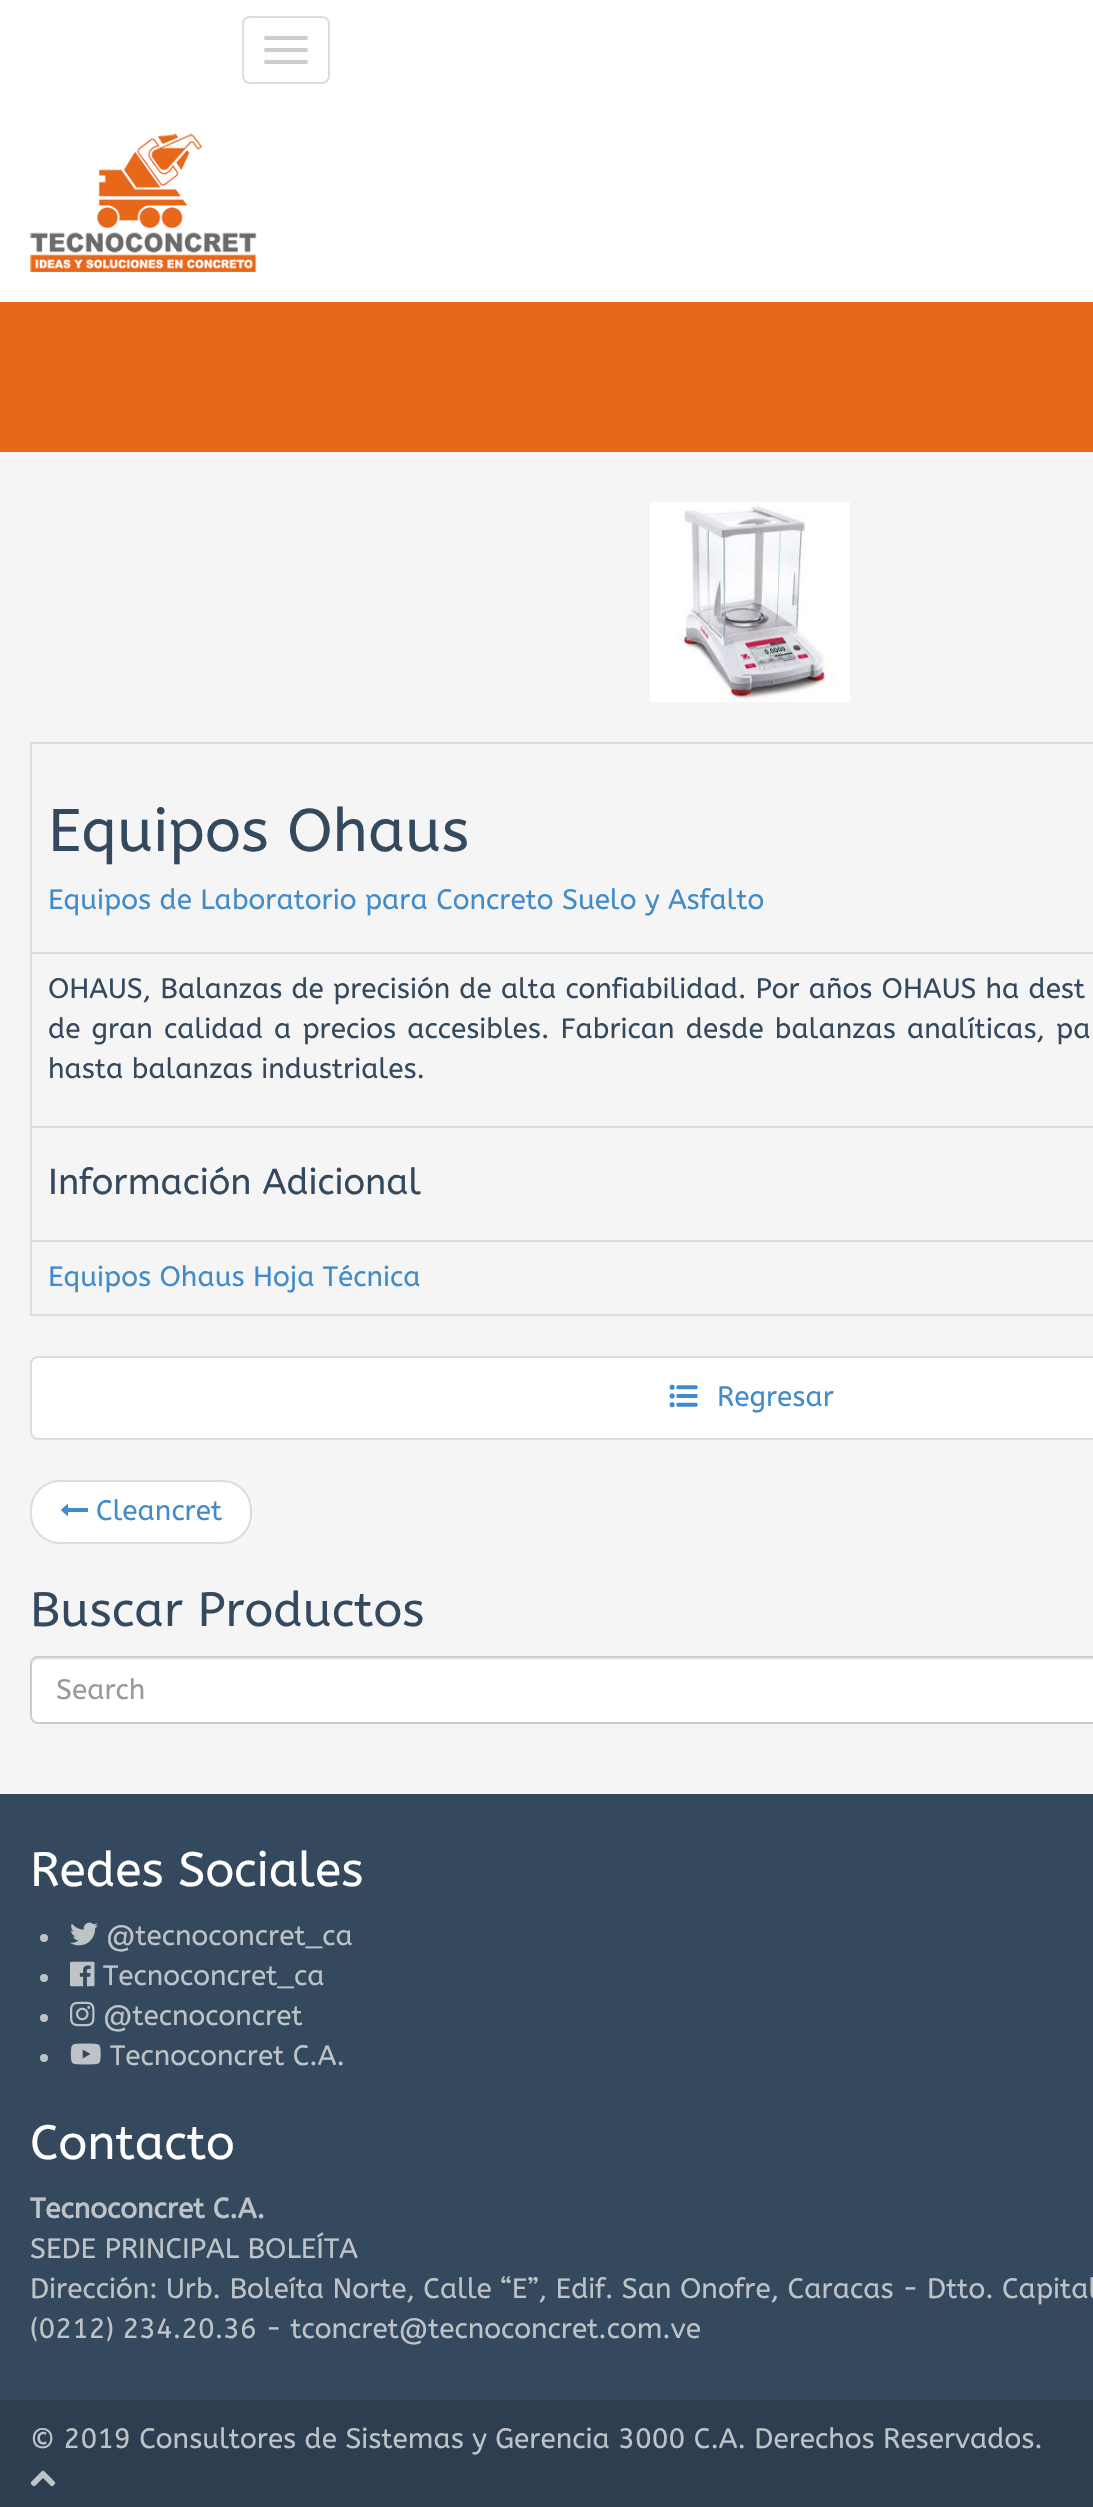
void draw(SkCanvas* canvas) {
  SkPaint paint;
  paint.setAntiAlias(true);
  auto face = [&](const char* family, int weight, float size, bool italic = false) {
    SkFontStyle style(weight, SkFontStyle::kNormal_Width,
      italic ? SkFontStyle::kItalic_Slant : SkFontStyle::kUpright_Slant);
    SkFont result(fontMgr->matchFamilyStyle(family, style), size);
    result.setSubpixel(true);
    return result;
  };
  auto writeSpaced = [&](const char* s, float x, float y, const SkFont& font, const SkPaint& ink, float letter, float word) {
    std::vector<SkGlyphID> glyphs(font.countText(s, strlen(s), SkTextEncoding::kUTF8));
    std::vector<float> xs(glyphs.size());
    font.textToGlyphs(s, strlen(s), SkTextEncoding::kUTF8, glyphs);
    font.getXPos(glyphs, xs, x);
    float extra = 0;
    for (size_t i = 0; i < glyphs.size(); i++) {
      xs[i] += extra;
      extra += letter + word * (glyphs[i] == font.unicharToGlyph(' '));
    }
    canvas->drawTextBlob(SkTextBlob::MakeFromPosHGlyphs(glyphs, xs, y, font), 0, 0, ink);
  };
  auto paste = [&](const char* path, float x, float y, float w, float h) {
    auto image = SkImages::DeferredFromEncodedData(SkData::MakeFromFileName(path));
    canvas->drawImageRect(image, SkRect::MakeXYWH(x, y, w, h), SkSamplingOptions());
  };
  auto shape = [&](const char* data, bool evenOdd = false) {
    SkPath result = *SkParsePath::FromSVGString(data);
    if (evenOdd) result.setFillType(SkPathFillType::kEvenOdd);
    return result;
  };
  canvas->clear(0xfff5f5f5);
  paint.setColor(0xffffffff);
  canvas->drawRect(SkRect::MakeXYWH(0, 0, 1093, 302), paint);
  paint.setStroke(true);
  paint.setStrokeWidth(2);
  paint.setColor(0xffdddddd);
  canvas->drawRoundRect(SkRect::MakeXYWH(243, 17, 86, 66), 7, 7, paint);
  paint.setStroke(false);
  paint.setColor(0xffcccccc);
  canvas->drawRoundRect(SkRect::MakeXYWH(264, 36, 44, 4), 2, 2, paint);
  canvas->drawRoundRect(SkRect::MakeXYWH(264, 48, 44, 4), 2, 2, paint);
  canvas->drawRoundRect(SkRect::MakeXYWH(264, 60, 44, 4), 2, 2, paint);
  paste("img/1.png", 30, 133, 227, 139);
  paint.setColor(0xffe86819);
  canvas->drawRect(SkRect::MakeXYWH(0, 302, 1093, 150), paint);
  paste("img/2.png", 650, 502, 200, 200);
  {
    const struct { float x, y, w, h; SkColor color; } items[] = {
      {30, 742, 1063, 2, 0xffdddddd},
      {30, 742, 2, 574, 0xffdddddd},
      {30, 952, 1063, 2, 0xffdddddd},
      {30, 1126, 1063, 2, 0xffdddddd},
      {30, 1240, 1063, 2, 0xffdddddd},
      {30, 1314, 1063, 2, 0xffdddddd},
    };
    for (auto [x, y, w, h, color] : items) {
      paint.setColor(color);
      canvas->drawRect(SkRect::MakeXYWH(x, y, w, h), paint);
    }
  }
  paint.setColor(0xffffffff);
  canvas->drawRoundRect(SkRect::MakeXYWH(31, 1357, 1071, 82), 7, 7, paint);
  paint.setStroke(true);
  paint.setColor(0xffdddddd);
  canvas->drawRoundRect(SkRect::MakeXYWH(31, 1357, 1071, 82), 7, 7, paint);
  paste("img/3.png", 669, 1384, 29, 24);
  paint.setStroke(false);
  paint.setColor(0xffffffff);
  canvas->drawRoundRect(SkRect::MakeXYWH(31, 1481, 220, 62), 29, 29, paint);
  paint.setStroke(true);
  paint.setColor(0xffdddddd);
  canvas->drawRoundRect(SkRect::MakeXYWH(31, 1481, 220, 62), 29, 29, paint);
  paste("img/4.png", 61, 1504, 27, 12);
  paint.setStroke(false);
  paint.setColor(0xffffffff);
  canvas->drawPath(shape("M38 1656H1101V1724H38C33.5 1724 30 1720.5 30 1716V1664C30 1659.5 33.5 1656 38 1656Z"), paint);
  paint.setColor(0xffececec);
  canvas->drawPath(shape("M38 1660H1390V1658H38C35 1658 32 1661 32 1664V1666C32 1663 35 1660 38 1660Z"), paint);
  paint.setStroke(true);
  paint.setColor(0xffcccccc);
  canvas->drawPath(shape("M38 1657H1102V1723H38C34 1723 31 1720 31 1716V1664C31 1660 34 1657 38 1657Z"), paint);
  paint.setStroke(false);
  paint.setColor(0xff34495e);
  canvas->drawRect(SkRect::MakeXYWH(0, 1794, 1093, 606), paint);
  paint.setColor(0xffbdc3c7);
  canvas->drawCircle(44, 1938, 4, paint);
  paste("img/5.png", 70, 1922, 28, 24);
  canvas->drawCircle(44, 1978, 4, paint);
  paste("img/6.png", 70, 1961, 25, 26);
  canvas->drawCircle(44, 2018, 4, paint);
  paste("img/7.png", 70, 2001, 25, 26);
  canvas->drawCircle(44, 2058, 4, paint);
  paste("img/8.png", 70, 2043, 31, 22);
  paint.setColor(0xff2c3e50);
  canvas->drawRect(SkRect::MakeXYWH(0, 2400, 1093, 107), paint);
  paste("img/9.png", 30, 2470, 26, 17);
  auto f0 = face("ABeeZee", 400, 60);
  paint.setColor(0xff34495e);
  canvas->drawString("Equipos Ohaus", 48, 851, f0, paint);
  auto f1 = face("ABeeZee", 400, 28);
  paint.setColor(0xff428bca);
  canvas->drawString("Equipos de Laboratorio para Concreto Suelo y Asfalto", 48, 909, f1, paint);
  paint.setColor(0xff34495e);
  writeSpaced("OHAUS, Balanzas de precisión de alta confiabilidad. Por años OHAUS ha dest", 48, 998, f1, paint, 0, 0.75f);
  writeSpaced("de gran calidad a precios accesibles. Fabrican desde balanzas analíticas, pa", 48, 1038, f1, paint, 0, 2.75f);
  canvas->drawString("hasta balanzas industriales.", 48, 1078, f1, paint);
  auto f2 = face("ABeeZee", 400, 36);
  canvas->drawString("Información Adicional", 48, 1194, f2, paint);
  paint.setColor(0xff428bca);
  {
    const struct { const char* s; float x, y; } items[] = {
      {"Equipos Ohaus Hoja Técnica", 48, 1286},
      {"Regresar", 717, 1406},
      {"Cleancret", 96, 1520},
    };
    for (auto [s, x, y] : items) {
      canvas->drawString(s, x, y, f1, paint);
    }
  }
  auto f3 = face("ABeeZee", 400, 48);
  paint.setColor(0xff34495e);
  canvas->drawString("Buscar Productos", 30, 1626, f3, paint);
  paint.setColor(0xff999999);
  canvas->drawString("Search", 56, 1699, f1, paint);
  paint.setColor(0xffffffff);
  canvas->drawString("Redes Sociales", 30, 1886, f3, paint);
  paint.setColor(0xffbdc3c7);
  {
    const struct { const char* s; float x, y; } items[] = {
      {"@tecnoconcret_ca", 106, 1945},
      {"Tecnoconcret_ca", 103, 1985},
      {"@tecnoconcret", 103, 2025},
      {"Tecnoconcret C.A.", 110, 2065},
    };
    for (auto [s, x, y] : items) {
      canvas->drawString(s, x, y, f1, paint);
    }
  }
  paint.setColor(0xffffffff);
  canvas->drawString("Contacto", 30, 2159, f3, paint);
  auto f4 = face("ABeeZee", 700, 28);
  paint.setColor(0xffbdc3c7);
  canvas->drawString("Tecnoconcret C.A.", 30, 2218, f4, paint);
  {
    const struct { const char* s; float x, y; } items[] = {
      {"SEDE PRINCIPAL BOLEÍTA", 30, 2258},
      {"Dirección: Urb. Boleíta Norte, Calle “E”, Edif. San Onofre, Caracas - Dtto. Capital", 30, 2298},
      {"(0212) 234.20.36 - tconcret@tecnoconcret.com.ve", 30, 2338},
      {"© 2019 Consultores de Sistemas y Gerencia 3000 C.A. Derechos Reservados.", 30, 2448},
    };
    for (auto [s, x, y] : items) {
      canvas->drawString(s, x, y, f1, paint);
    }
  }
}
